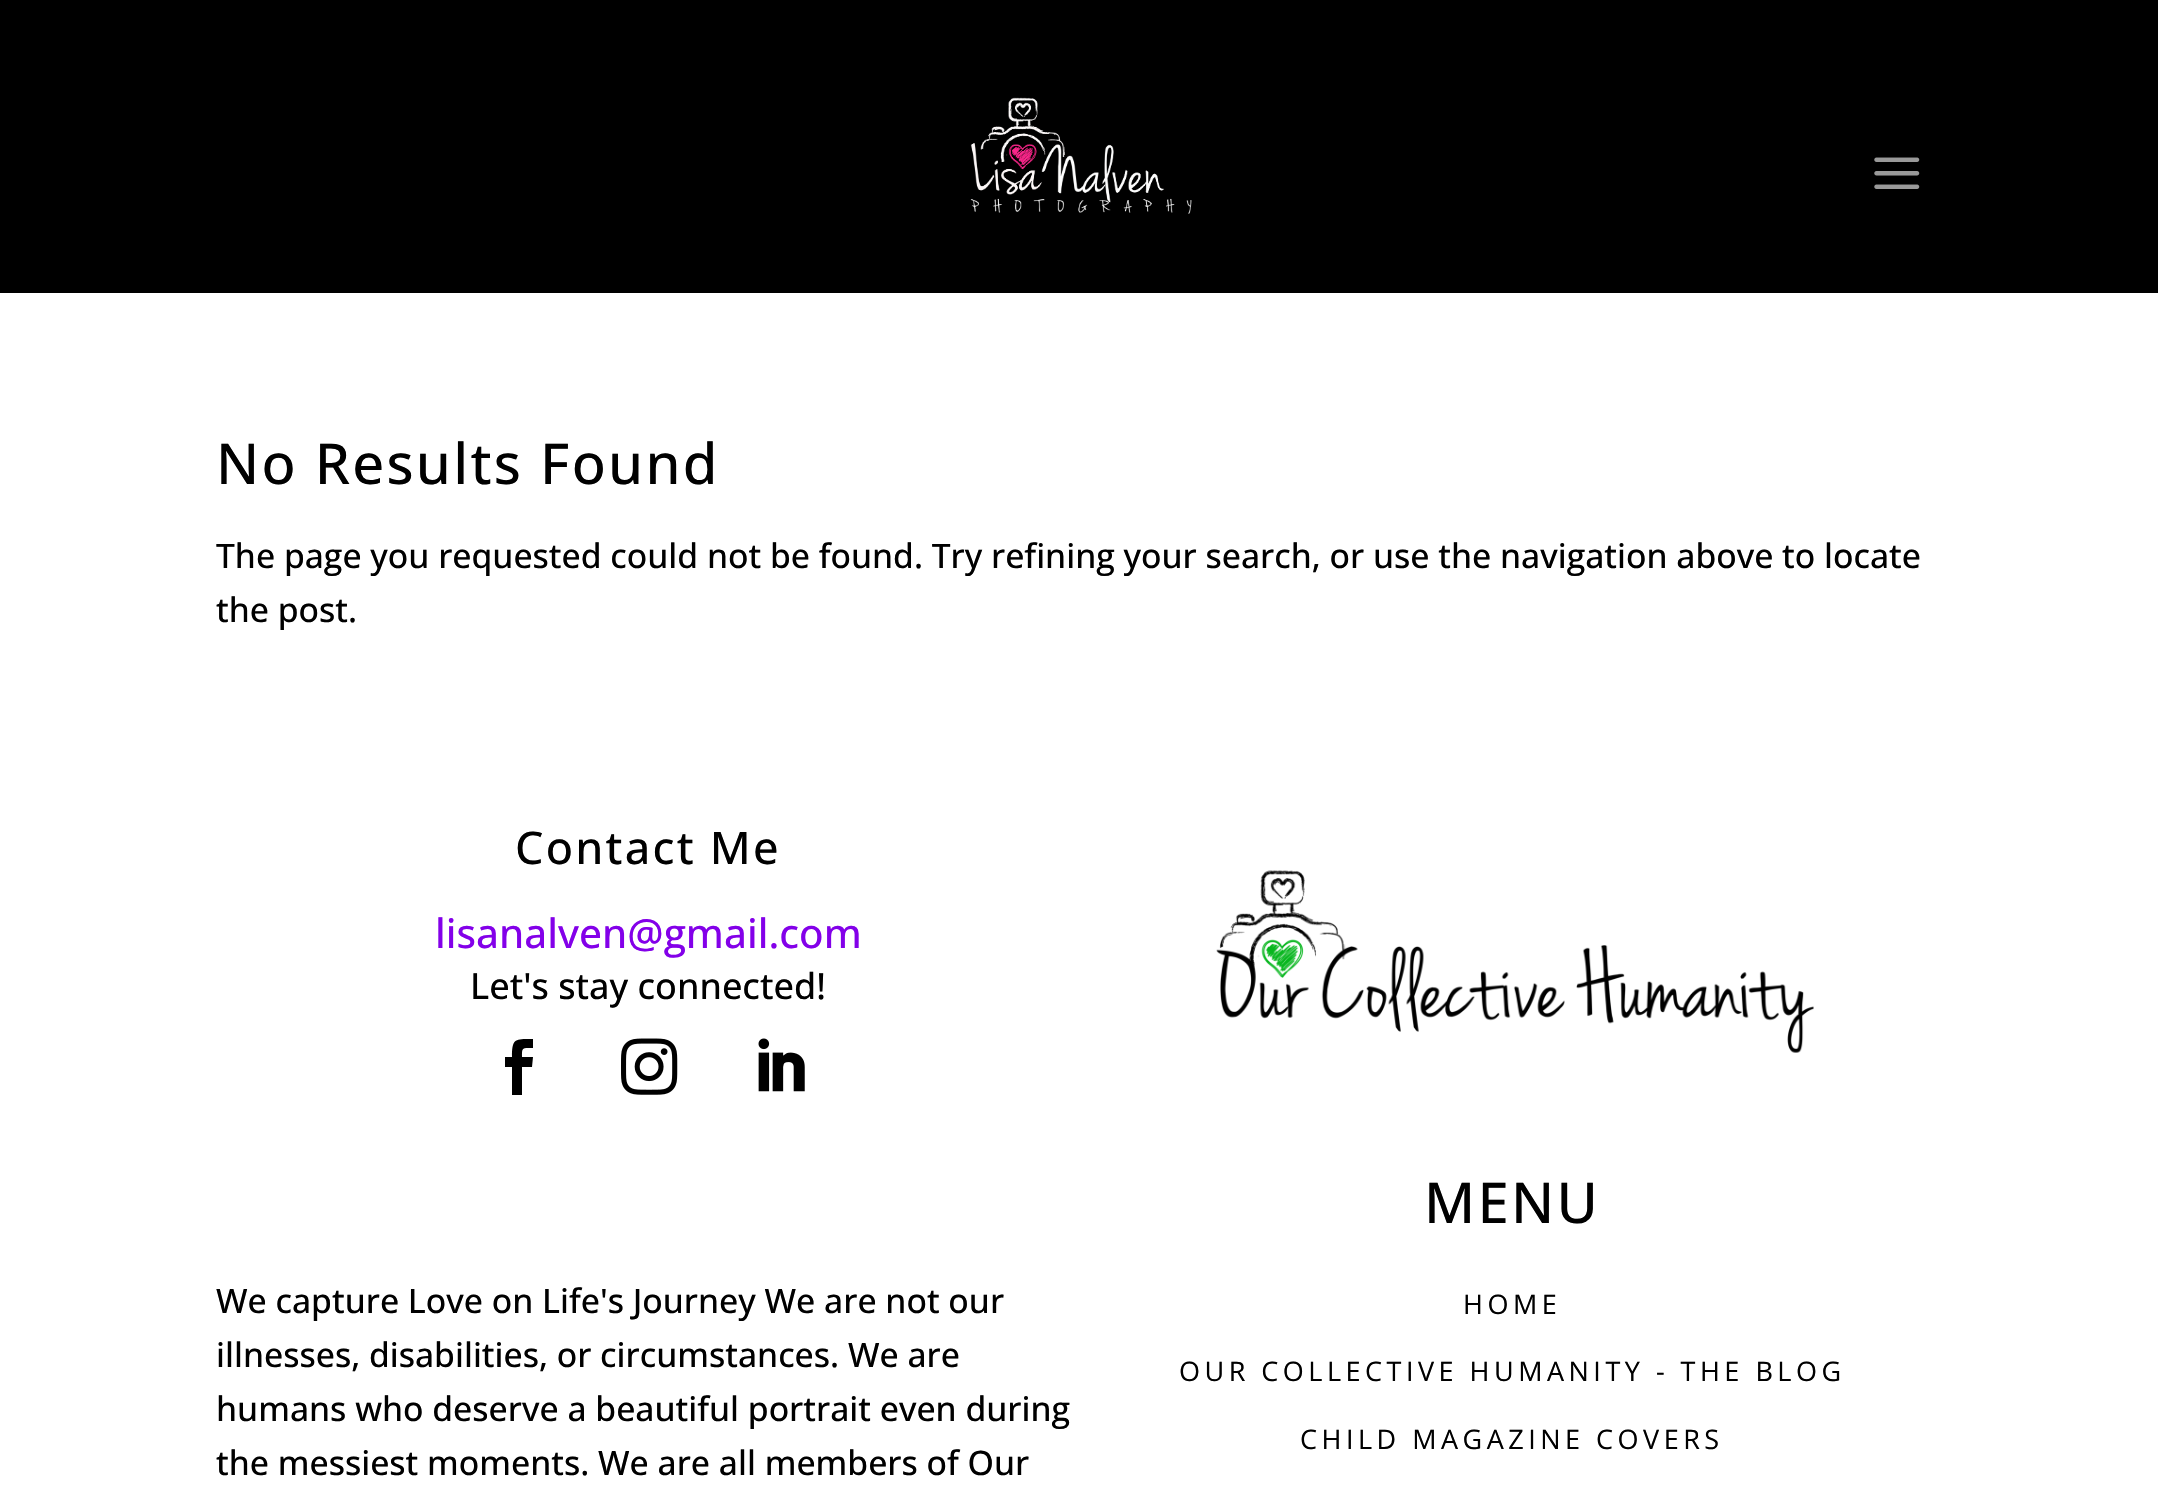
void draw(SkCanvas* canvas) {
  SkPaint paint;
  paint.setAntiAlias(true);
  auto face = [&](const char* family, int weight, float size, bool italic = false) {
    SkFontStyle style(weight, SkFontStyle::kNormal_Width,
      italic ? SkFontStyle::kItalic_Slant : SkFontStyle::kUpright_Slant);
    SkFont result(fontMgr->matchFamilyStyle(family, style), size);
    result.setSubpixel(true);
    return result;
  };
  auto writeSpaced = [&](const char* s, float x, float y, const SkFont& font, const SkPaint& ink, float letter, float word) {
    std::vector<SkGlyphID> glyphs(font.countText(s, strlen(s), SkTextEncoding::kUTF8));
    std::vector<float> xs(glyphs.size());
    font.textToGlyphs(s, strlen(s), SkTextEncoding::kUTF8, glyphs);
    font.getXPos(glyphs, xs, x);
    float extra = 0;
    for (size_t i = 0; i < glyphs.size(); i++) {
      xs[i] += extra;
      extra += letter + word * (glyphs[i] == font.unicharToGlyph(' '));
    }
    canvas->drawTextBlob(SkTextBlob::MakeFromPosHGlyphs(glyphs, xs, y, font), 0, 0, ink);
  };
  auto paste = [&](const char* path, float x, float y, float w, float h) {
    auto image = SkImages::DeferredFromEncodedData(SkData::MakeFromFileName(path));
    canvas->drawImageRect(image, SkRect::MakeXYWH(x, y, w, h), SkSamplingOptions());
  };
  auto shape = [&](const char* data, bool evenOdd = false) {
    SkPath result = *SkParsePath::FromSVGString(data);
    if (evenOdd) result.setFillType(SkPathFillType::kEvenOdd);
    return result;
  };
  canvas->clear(0xffffffff);
  paint.setColor(0xff000000);
  canvas->drawRect(SkRect::MakeXYWH(0, 0, 2158, 293), paint);
  paste("img/1.png", 970, 97, 222, 117);
  paste("img/2.png", 1874, 157, 46, 32);
  canvas->drawPath(shape("M512 1095H522V1067H532L533 1057H522C522 1047 522 1048 533 1048V1039C515 1039 512 1038 512 1057H505V1067H512Z"), paint);
  paste("img/3.png", 621, 1038, 57, 57);
  paste("img/4.png", 758, 1038, 47, 54);
  paste("img/5.png", 1216, 870, 598, 183);
  auto f0 = face("Open Sans", 500, 56.25f);
  writeSpaced("No Results Found", 216, 484, f0, paint, 2.25f, 0);
  auto f1 = face("Open Sans", 500, 33.75f);
  canvas->drawString("The page you requested could not be found. Try refining your search, or use the navigation above to locate", 216, 568, f1, paint);
  canvas->drawString("the post.", 216, 622, f1, paint);
  auto f2 = face("Open Sans", 500, 45);
  writeSpaced("Contact Me", 515, 864, f2, paint, 2.25f, 0);
  auto f3 = face("Open Sans", 500, 40.5f);
  paint.setColor(0xff8300e9);
  canvas->drawString("lisanalven@gmail.com", 435, 948, f3, paint);
  auto f4 = face("Open Sans", 500, 36);
  paint.setColor(0xff000000);
  canvas->drawString("Let's stay connected!", 470, 999, f4, paint);
  {
    const struct { const char* s; float x, y; } items[] = {
      {"We capture Love on Life's Journey We are not our", 216, 1313},
      {"illnesses, disabilities, or circumstances. We are", 216, 1367},
      {"humans who deserve a beautiful portrait even during", 216, 1421},
      {"the messiest moments. We are all members of Our", 216, 1475},
    };
    for (auto [s, x, y] : items) {
      canvas->drawString(s, x, y, f1, paint);
    }
  }
  writeSpaced("MENU", 1424, 1223, f0, paint, 2.25f, 0);
  auto f5 = face("Open Sans", 400, 27);
  {
    const struct { const char* s; float x, y; } items[] = {
      {"HOME", 1463, 1314},
      {"OUR COLLECTIVE HUMANITY - THE BLOG", 1179, 1381},
      {"CHILD MAGAZINE COVERS", 1300, 1449},
    };
    for (auto [s, x, y] : items) {
      writeSpaced(s, x, y, f5, paint, 4.5f, 0);
    }
  }
}
